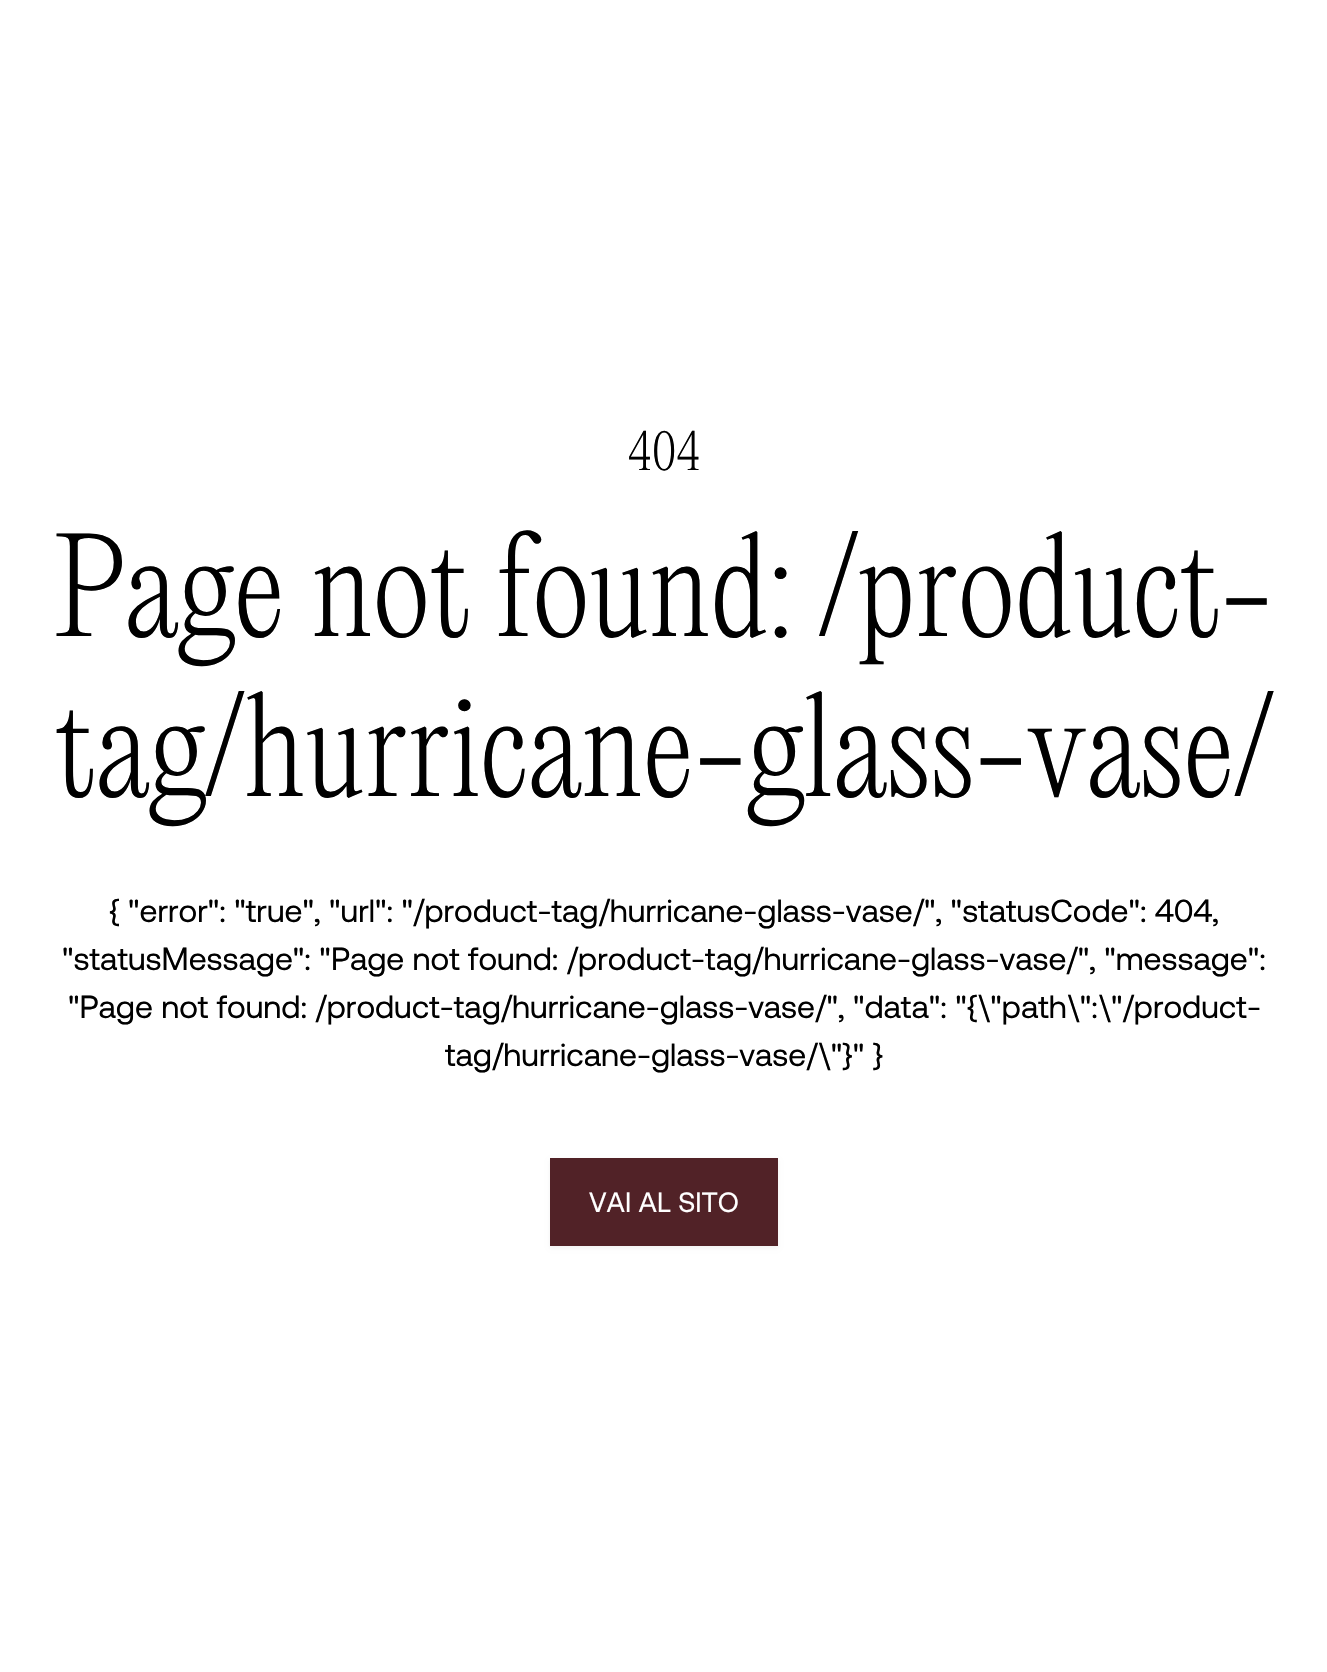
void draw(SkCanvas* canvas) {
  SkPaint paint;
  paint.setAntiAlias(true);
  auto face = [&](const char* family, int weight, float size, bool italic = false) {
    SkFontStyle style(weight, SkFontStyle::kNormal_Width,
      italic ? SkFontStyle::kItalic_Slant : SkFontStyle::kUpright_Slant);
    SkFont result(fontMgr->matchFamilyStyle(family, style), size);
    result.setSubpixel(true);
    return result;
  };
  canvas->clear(0xffffffff);
  paint.setColor(0x0d000000);
  paint.setMaskFilter(SkMaskFilter::MakeBlur(kNormal_SkBlurStyle, 2));
  canvas->drawRect(SkRect::MakeXYWH(550, 1160, 228, 88), paint);
  paint.setMaskFilter(nullptr);
  paint.setColor(0xff512227);
  canvas->drawRect(SkRect::MakeXYWH(550, 1158, 228, 88), paint);
  auto f0 = face("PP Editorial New", 200, 48);
  paint.setColor(0xff000000);
  canvas->drawString("404", 628, 470, f0, paint);
  auto f1 = face("PP Editorial New", 200, 128);
  canvas->drawString("Page not found: /product-", 54, 636, f1, paint);
  canvas->drawString("tag/hurricane-glass-vase/", 55, 796, f1, paint);
  auto f2 = face("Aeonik", 400, 32);
  {
    const struct { const char* s; float x, y; } items[] = {
      {"{ \"error\": \"true\", \"url\": \"/product-tag/hurricane-glass-vase/\", \"statusCode\": 404,", 109, 922},
      {"\"statusMessage\": \"Page not found: /product-tag/hurricane-glass-vase/\", \"message\":", 62, 970},
      {"\"Page not found: /product-tag/hurricane-glass-vase/\", \"data\": \"{\\\"path\\\":\\\"/product-", 68, 1018},
      {"tag/hurricane-glass-vase/\\\"}\" }", 445, 1066},
    };
    for (auto [s, x, y] : items) {
      canvas->drawString(s, x, y, f2, paint);
    }
  }
  auto f3 = face("Aeonik", 400, 28);
  paint.setColor(0xffffffff);
  canvas->drawString("VAI AL SITO", 589, 1212, f3, paint);
}
